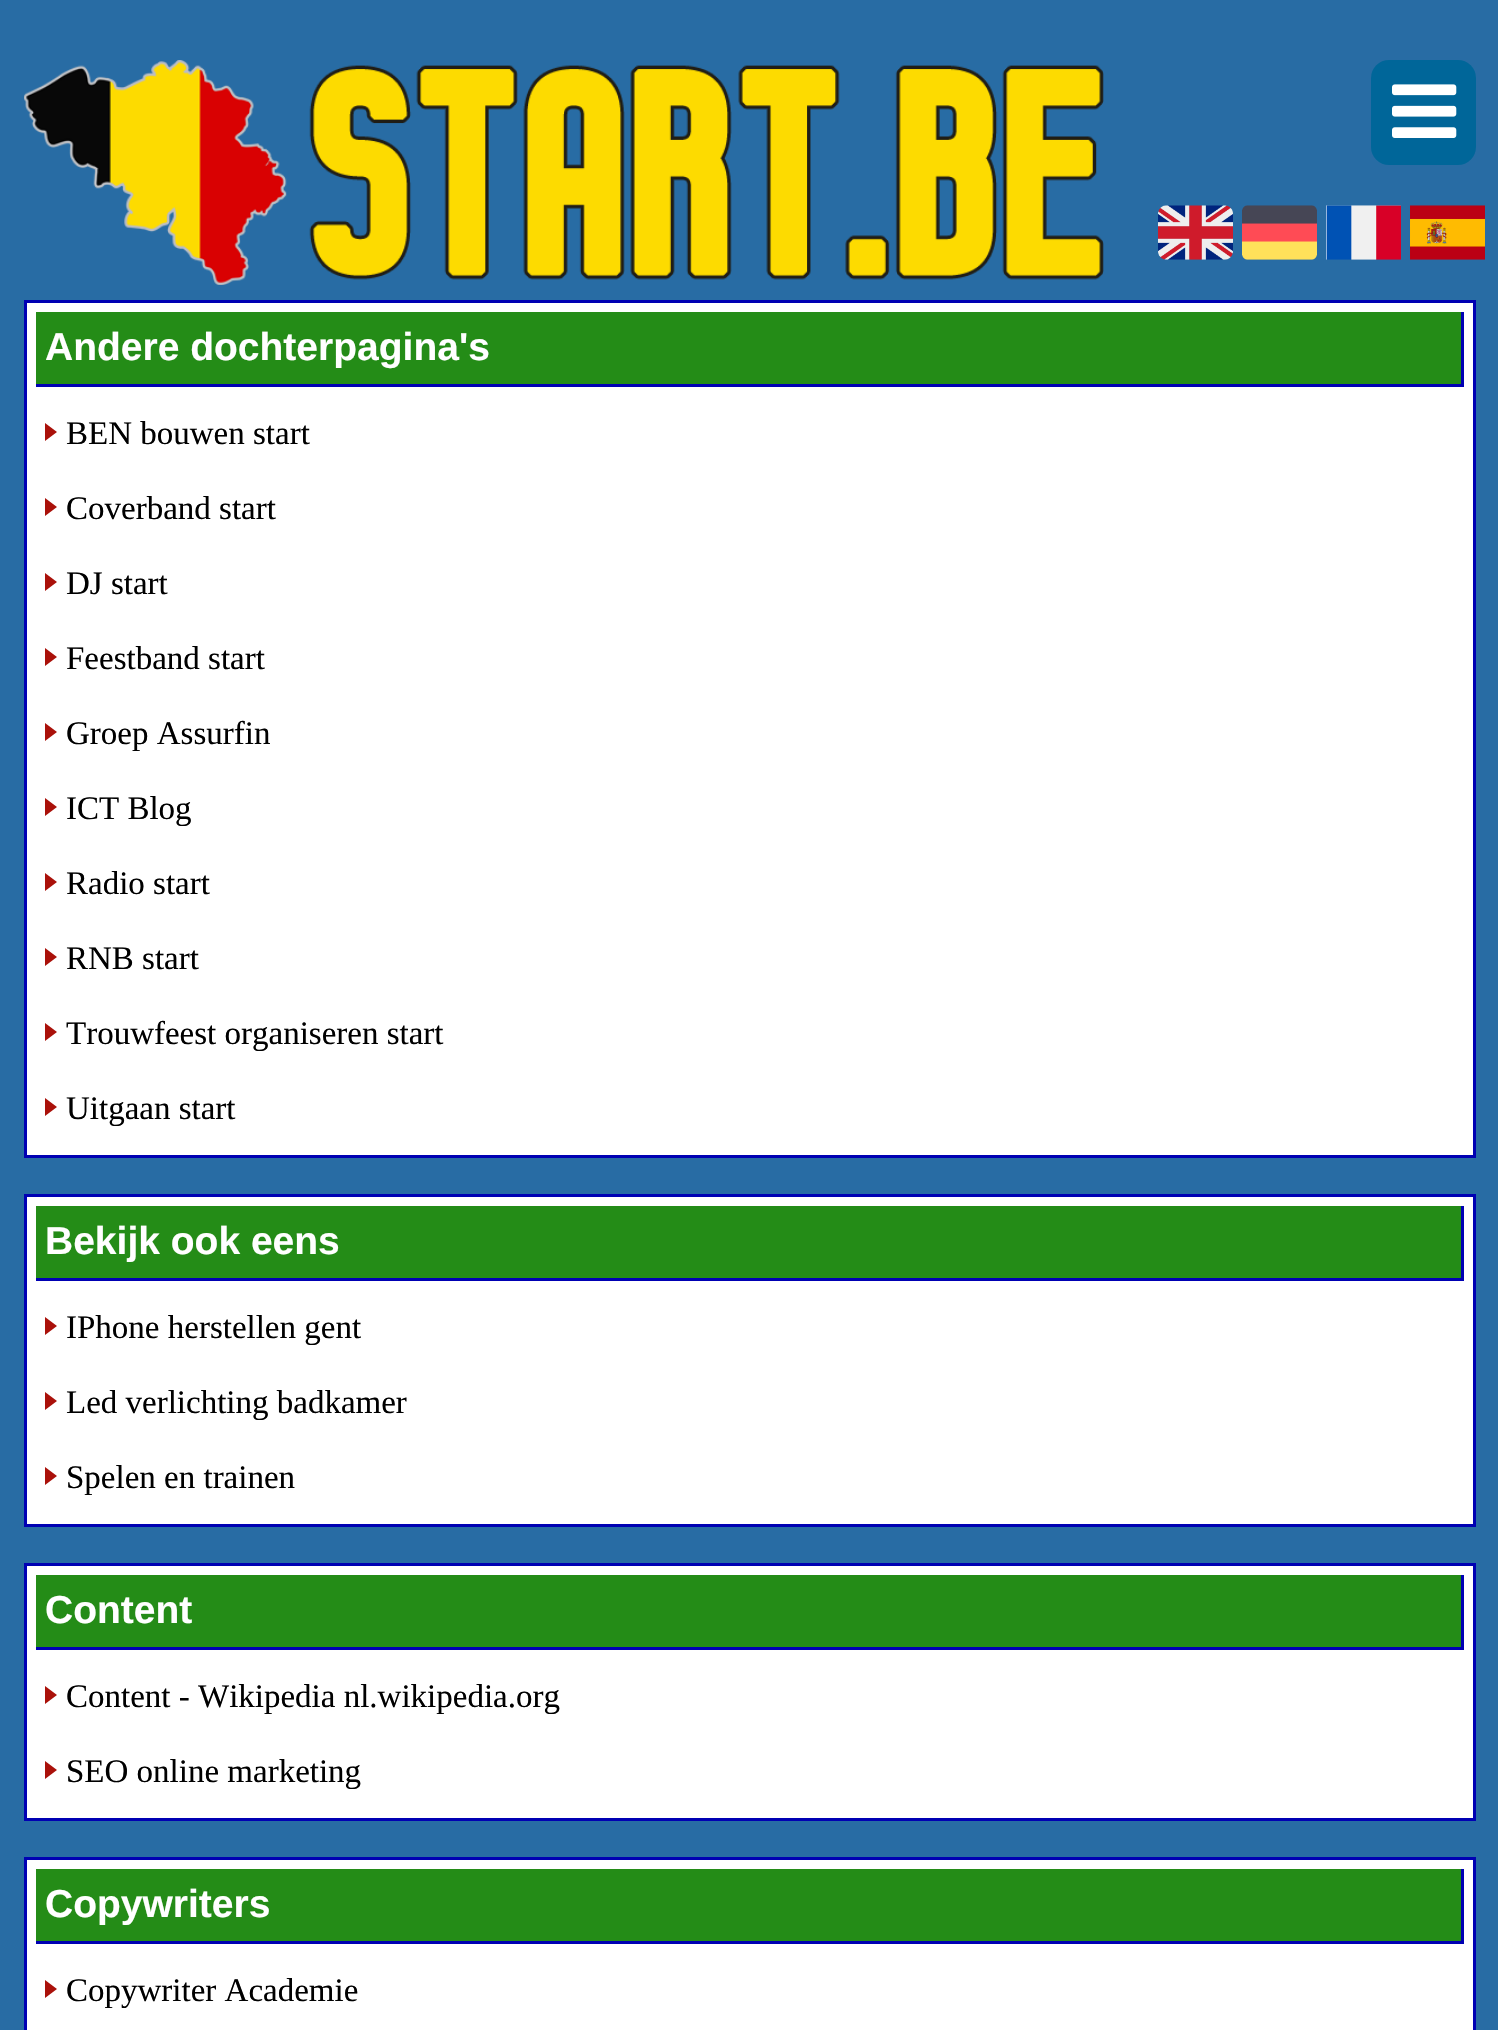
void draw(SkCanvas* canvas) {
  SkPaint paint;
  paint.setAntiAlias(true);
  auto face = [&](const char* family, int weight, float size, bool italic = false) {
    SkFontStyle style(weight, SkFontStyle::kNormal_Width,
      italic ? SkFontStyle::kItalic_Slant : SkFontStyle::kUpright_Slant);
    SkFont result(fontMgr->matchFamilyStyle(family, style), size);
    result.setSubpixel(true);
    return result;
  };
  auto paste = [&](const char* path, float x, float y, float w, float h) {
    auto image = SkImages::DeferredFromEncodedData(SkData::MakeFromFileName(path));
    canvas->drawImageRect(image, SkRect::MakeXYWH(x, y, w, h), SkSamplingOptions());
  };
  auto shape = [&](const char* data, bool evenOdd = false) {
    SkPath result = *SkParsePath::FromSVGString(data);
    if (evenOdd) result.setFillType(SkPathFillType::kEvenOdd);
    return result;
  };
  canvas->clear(0xff286ca4);
  paste("img/1.png", 24, 60, 1080, 225);
  paint.setColor(0xff006699);
  canvas->drawRoundRect(SkRect::MakeXYWH(1371, 60, 105, 105), 18, 18, paint);
  paste("img/2.png", 1392, 84, 65, 54);
  paste("img/3.png", 1158, 205, 75, 55);
  paste("img/4.png", 1242, 205, 75, 55);
  paste("img/5.png", 1326, 205, 75, 55);
  paste("img/6.png", 1410, 205, 75, 55);
  paint.setColor(0xffffffff);
  canvas->drawRect(SkRect::MakeXYWH(25.5f, 301.5f, 1449, 855), paint);
  paint.setStroke(true);
  paint.setStrokeWidth(3);
  paint.setColor(0xff0000b3);
  canvas->drawRect(SkRect::MakeXYWH(25.5f, 301.5f, 1449, 855), paint);
  paint.setStroke(false);
  {
    const struct { float x, y, w, h; SkColor color; } items[] = {
      {36, 312, 1425, 72, 0xff248c17},
      {1461, 312, 3, 75, 0xff0000b3},
      {36, 384, 1428, 3, 0xff0000b3},
    };
    for (auto [x, y, w, h, color] : items) {
      paint.setColor(color);
      canvas->drawRect(SkRect::MakeXYWH(x, y, w, h), paint);
    }
  }
  paint.setColor(0xffaa110a);
  canvas->drawPath(shape("M45 441V423L57 432Z"), paint);
  canvas->drawPath(shape("M45 516V498L57 507Z"), paint);
  canvas->drawPath(shape("M45 591V573L57 582Z"), paint);
  canvas->drawPath(shape("M45 666V648L57 657Z"), paint);
  canvas->drawPath(shape("M45 741V723L57 732Z"), paint);
  canvas->drawPath(shape("M45 816V798L57 807Z"), paint);
  canvas->drawPath(shape("M45 891V873L57 882Z"), paint);
  canvas->drawPath(shape("M45 966V948L57 957Z"), paint);
  canvas->drawPath(shape("M45 1041V1023L57 1032Z"), paint);
  canvas->drawPath(shape("M45 1116V1098L57 1107Z"), paint);
  paint.setColor(0xffffffff);
  canvas->drawRect(SkRect::MakeXYWH(25.5f, 1195.5f, 1449, 330), paint);
  paint.setStroke(true);
  paint.setColor(0xff0000b3);
  canvas->drawRect(SkRect::MakeXYWH(25.5f, 1195.5f, 1449, 330), paint);
  paint.setStroke(false);
  {
    const struct { float x, y, w, h; SkColor color; } items[] = {
      {36, 1206, 1425, 72, 0xff248c17},
      {1461, 1206, 3, 75, 0xff0000b3},
      {36, 1278, 1428, 3, 0xff0000b3},
    };
    for (auto [x, y, w, h, color] : items) {
      paint.setColor(color);
      canvas->drawRect(SkRect::MakeXYWH(x, y, w, h), paint);
    }
  }
  paint.setColor(0xffaa110a);
  canvas->drawPath(shape("M45 1335V1317L57 1326Z"), paint);
  canvas->drawPath(shape("M45 1410V1392L57 1401Z"), paint);
  canvas->drawPath(shape("M45 1485V1467L57 1476Z"), paint);
  paint.setColor(0xffffffff);
  canvas->drawRect(SkRect::MakeXYWH(25.5f, 1564.5f, 1449, 255), paint);
  paint.setStroke(true);
  paint.setColor(0xff0000b3);
  canvas->drawRect(SkRect::MakeXYWH(25.5f, 1564.5f, 1449, 255), paint);
  paint.setStroke(false);
  {
    const struct { float x, y, w, h; SkColor color; } items[] = {
      {36, 1575, 1425, 72, 0xff248c17},
      {1461, 1575, 3, 75, 0xff0000b3},
      {36, 1647, 1428, 3, 0xff0000b3},
    };
    for (auto [x, y, w, h, color] : items) {
      paint.setColor(color);
      canvas->drawRect(SkRect::MakeXYWH(x, y, w, h), paint);
    }
  }
  paint.setColor(0xffaa110a);
  canvas->drawPath(shape("M45 1704V1686L57 1695Z"), paint);
  canvas->drawPath(shape("M45 1779V1761L57 1770Z"), paint);
  paint.setColor(0xffffffff);
  canvas->drawRect(SkRect::MakeXYWH(25.5f, 1858.5f, 1449, 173), paint);
  paint.setStroke(true);
  paint.setColor(0xff0000b3);
  canvas->drawRect(SkRect::MakeXYWH(25.5f, 1858.5f, 1449, 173), paint);
  paint.setStroke(false);
  {
    const struct { float x, y, w, h; SkColor color; } items[] = {
      {36, 1869, 1425, 72, 0xff248c17},
      {1461, 1869, 3, 75, 0xff0000b3},
      {36, 1941, 1428, 3, 0xff0000b3},
    };
    for (auto [x, y, w, h, color] : items) {
      paint.setColor(color);
      canvas->drawRect(SkRect::MakeXYWH(x, y, w, h), paint);
    }
  }
  paint.setColor(0xffaa110a);
  canvas->drawPath(shape("M45 1998V1980L57 1989Z"), paint);
  auto f0 = face("Liberation Sans", 700, 39);
  paint.setColor(0xffffffff);
  canvas->drawString("Andere dochterpagina's", 45, 360, f0, paint);
  auto f1 = face("Liberation Serif", 400, 33);
  paint.setColor(0xff000000);
  {
    const struct { const char* s; float x, y; } items[] = {
      {"BEN bouwen start", 66, 444},
      {"Coverband start", 66, 519},
      {"DJ start", 66, 594},
      {"Feestband start", 66, 669},
      {"Groep Assurfin", 66, 744},
      {"ICT Blog", 66, 819},
      {"Radio start", 66, 894},
      {"RNB start", 66, 969},
      {"Trouwfeest organiseren start", 66, 1044},
      {"Uitgaan start", 66, 1119},
    };
    for (auto [s, x, y] : items) {
      canvas->drawString(s, x, y, f1, paint);
    }
  }
  paint.setColor(0xffffffff);
  canvas->drawString("Bekijk ook eens", 45, 1254, f0, paint);
  paint.setColor(0xff000000);
  {
    const struct { const char* s; float x, y; } items[] = {
      {"IPhone herstellen gent", 66, 1338},
      {"Led verlichting badkamer", 66, 1413},
      {"Spelen en trainen", 66, 1488},
    };
    for (auto [s, x, y] : items) {
      canvas->drawString(s, x, y, f1, paint);
    }
  }
  paint.setColor(0xffffffff);
  canvas->drawString("Content", 45, 1623, f0, paint);
  paint.setColor(0xff000000);
  canvas->drawString("Content - Wikipedia nl.wikipedia.org", 66, 1707, f1, paint);
  canvas->drawString("SEO online marketing", 66, 1782, f1, paint);
  paint.setColor(0xffffffff);
  canvas->drawString("Copywriters", 45, 1917, f0, paint);
  paint.setColor(0xff000000);
  canvas->drawString("Copywriter Academie", 66, 2001, f1, paint);
}
